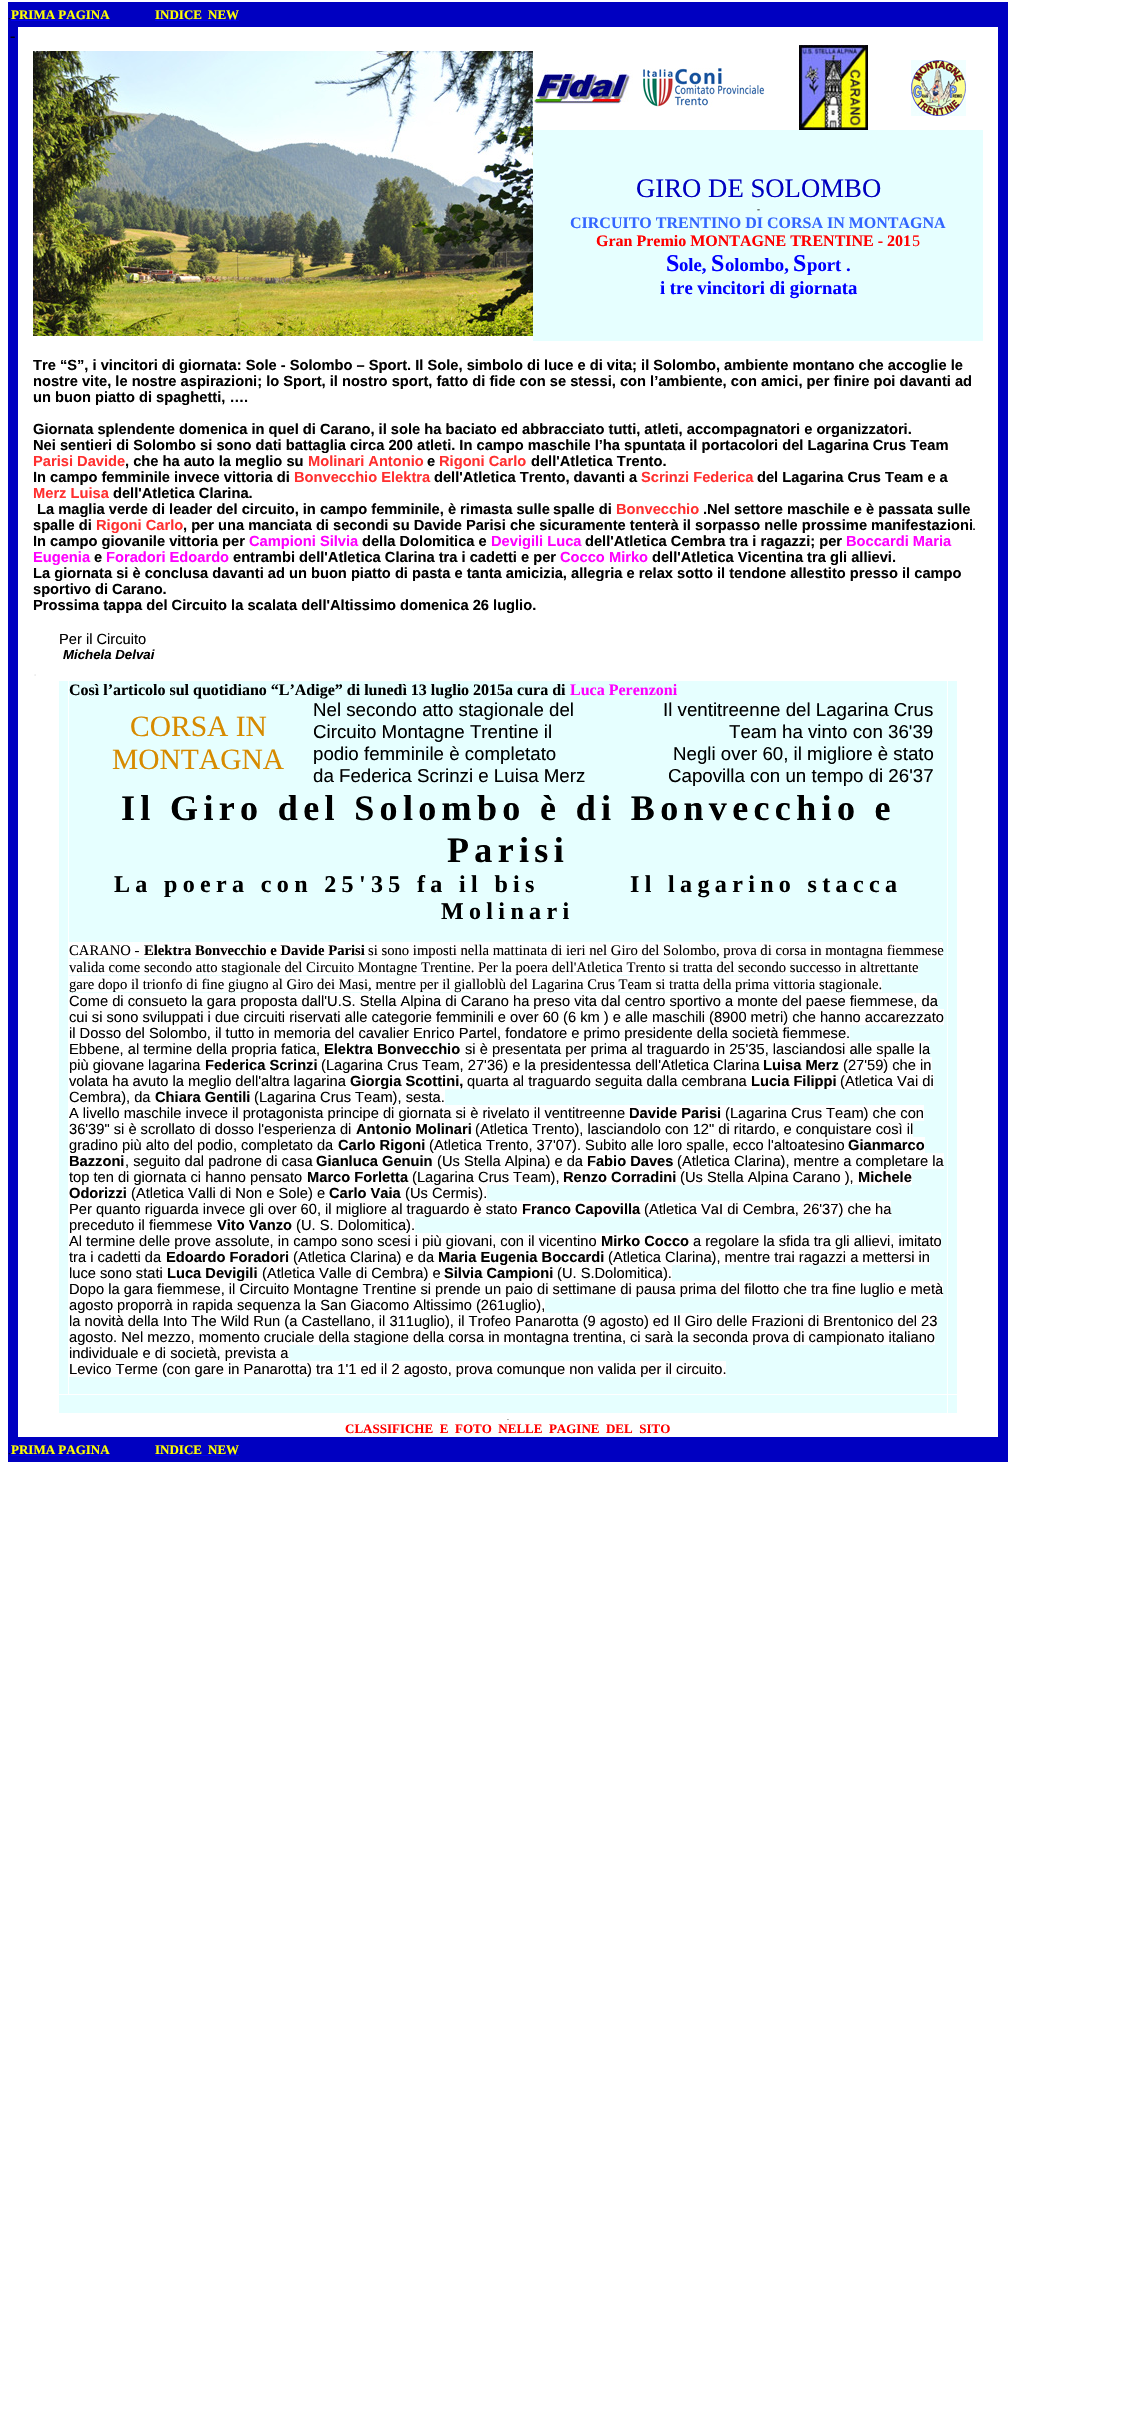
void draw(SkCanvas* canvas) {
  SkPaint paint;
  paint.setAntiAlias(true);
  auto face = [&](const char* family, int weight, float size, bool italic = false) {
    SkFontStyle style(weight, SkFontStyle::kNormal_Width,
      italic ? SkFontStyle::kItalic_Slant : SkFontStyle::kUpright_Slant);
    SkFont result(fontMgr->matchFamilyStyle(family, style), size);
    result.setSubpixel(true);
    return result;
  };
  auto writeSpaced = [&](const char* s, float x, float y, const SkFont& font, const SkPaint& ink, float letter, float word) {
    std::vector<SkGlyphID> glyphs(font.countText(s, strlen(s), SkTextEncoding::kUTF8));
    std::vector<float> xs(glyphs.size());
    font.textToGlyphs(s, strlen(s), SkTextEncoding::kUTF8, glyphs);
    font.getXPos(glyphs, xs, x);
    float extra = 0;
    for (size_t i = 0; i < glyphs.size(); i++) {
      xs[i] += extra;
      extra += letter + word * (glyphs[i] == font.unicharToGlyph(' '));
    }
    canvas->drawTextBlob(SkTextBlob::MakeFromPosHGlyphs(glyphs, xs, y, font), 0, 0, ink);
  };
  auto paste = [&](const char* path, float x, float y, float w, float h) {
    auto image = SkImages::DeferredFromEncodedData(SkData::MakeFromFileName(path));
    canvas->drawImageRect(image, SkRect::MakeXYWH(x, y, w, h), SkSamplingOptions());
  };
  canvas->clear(0xffffffff);
  {
    const struct { float x, y, w, h; SkColor color; } items[] = {
      {8, 2, 1000, 25, 0xff0000c1},
      {11, 20, 98, 1, 0xff0000ee},
      {155, 20, 84, 1, 0xff0000ee},
      {8, 27, 10, 1410, 0xff0000c1},
      {998, 27, 10, 1410, 0xff0000c1},
    };
    for (auto [x, y, w, h, color] : items) {
      paint.setColor(color);
      canvas->drawRect(SkRect::MakeXYWH(x, y, w, h), paint);
    }
  }
  paste("img/1.png", 33, 51, 500, 285);
  paste("img/2.png", 533, 70, 100, 35);
  paste("img/3.png", 643, 68, 122, 39);
  paste("img/4.png", 799, 45, 69, 85);
  paste("img/5.png", 911, 60, 55, 56);
  {
    const struct { float x, y, w, h; SkColor color; } items[] = {
      {533, 130, 450, 211, 0xffe6ffff},
      {59, 681, 9, 713, 0xffe6ffff},
      {69, 681, 878, 713, 0xffe6ffff},
      {69, 942, 874, 16, 0xffffffff},
      {69, 959, 849, 16, 0xffffffff},
      {69, 976, 813, 16, 0xffffffff},
      {69, 993, 868, 16, 0xffffffff},
      {69, 1009, 875, 16, 0xffffffff},
      {69, 1025, 781, 16, 0xffffffff},
      {69, 1057, 863, 16, 0xffffffff},
      {69, 1073, 865, 16, 0xffffffff},
      {69, 1089, 376, 16, 0xffffffff},
      {69, 1121, 844, 16, 0xffffffff},
      {69, 1137, 856, 16, 0xffffffff},
      {69, 1153, 875, 16, 0xffffffff},
      {69, 1169, 843, 16, 0xffffffff},
      {69, 1185, 418, 16, 0xffffffff},
      {69, 1217, 346, 16, 0xffffffff},
      {69, 1249, 861, 16, 0xffffffff},
      {69, 1265, 603, 16, 0xffffffff},
      {69, 1297, 476, 16, 0xffffffff},
      {69, 1329, 866, 16, 0xffffffff},
      {69, 1345, 220, 16, 0xffffffff},
      {948, 681, 9, 713, 0xffe6ffff},
      {59, 1395, 888, 18, 0xffe6ffff},
      {948, 1395, 9, 18, 0xffe6ffff},
      {8, 1437, 1000, 25, 0xff0000c1},
      {11, 1455, 98, 1, 0xff0000ee},
      {155, 1455, 84, 1, 0xff0000ee},
    };
    for (auto [x, y, w, h, color] : items) {
      paint.setColor(color);
      canvas->drawRect(SkRect::MakeXYWH(x, y, w, h), paint);
    }
  }
  auto f0 = face("Liberation Serif", 400, 10);
  paint.setColor(0xff000000);
  canvas->drawString(".", 8, 19, f0, paint);
  auto f1 = face("Liberation Serif", 700, 13);
  paint.setColor(0xffffff00);
  {
    const struct { const char* s; float x, y; } items[] = {
      {"PRIMA PAGINA", 11, 19},
      {"INDICE", 155, 19},
      {"NEW", 208, 19},
    };
    for (auto [s, x, y] : items) {
      canvas->drawString(s, x, y, f1, paint);
    }
  }
  auto f2 = face("Liberation Serif", 400, 16);
  paint.setColor(0xff000000);
  canvas->drawString("-", 10, 41, f2, paint);
  auto f3 = face("Liberation Serif", 400, 26.75f);
  paint.setColor(0xff0000c1);
  canvas->drawString("GIRO DE SOLOMBO", 636, 197, f3, paint);
  auto f4 = face("Liberation Serif", 400, 9);
  paint.setColor(0xff000000);
  canvas->drawString("-", 757, 212, f4, paint);
  auto f5 = face("Liberation Serif", 700, 16);
  paint.setColor(0xff3366ff);
  canvas->drawString("CIRCUITO TRENTINO DI CORSA IN MONTAGNA", 570, 228, f5, paint);
  paint.setColor(0xffff0000);
  canvas->drawString("Gran Premio MONTAGNE TRENTINE - 201", 596, 246, f5, paint);
  canvas->drawString("5", 912, 246, f2, paint);
  auto f6 = face("Liberation Serif", 700, 24);
  paint.setColor(0xff0000ff);
  canvas->drawString("S", 666, 271, f6, paint);
  auto f7 = face("Liberation Serif", 700, 18.7f);
  canvas->drawString("ole,", 679, 271, f7, paint);
  canvas->drawString("S", 711, 271, f6, paint);
  canvas->drawString("olombo,", 725, 271, f7, paint);
  canvas->drawString("S", 793, 271, f6, paint);
  canvas->drawString("port .", 807, 271, f7, paint);
  canvas->drawString("i tre vincitori di giornata", 660, 294, f7, paint);
  auto f8 = face("Liberation Sans", 700, 14.67f);
  paint.setColor(0xff000000);
  {
    const struct { const char* s; float x, y; } items[] = {
      {"Tre “S”, i vincitori di giornata: Sole - Solombo – Sport. Il Sole, simbolo di luce e di vita; il Solombo,", 33, 370},
      {"ambiente montano che accoglie le", 724, 370},
      {"nostre vite, le nostre aspirazioni; lo Sport, il nostro sport, fatto di fide con se stessi, con l’ambiente, con amici, per finire poi davanti ad", 33, 386},
      {"un buon piatto di spaghetti, ….", 33, 402},
      {"Giornata splendente domenica in quel di Carano, il sole ha baciato ed abbracciato tutti, atleti, accompagnatori e organizzatori.", 33, 434},
      {"Nei sentieri di Solombo si sono dati battaglia circa 200 atleti. In campo maschile l’ha spuntata il portacolori del Lagarina Crus Team", 33, 450},
    };
    for (auto [s, x, y] : items) {
      canvas->drawString(s, x, y, f8, paint);
    }
  }
  paint.setColor(0xffff2f2f);
  canvas->drawString("Parisi Davide", 33, 466, f8, paint);
  paint.setColor(0xff000000);
  canvas->drawString(", che ha auto la meglio su", 125, 466, f8, paint);
  paint.setColor(0xffff2f2f);
  canvas->drawString("Molinari Antonio", 308, 466, f8, paint);
  paint.setColor(0xff000000);
  canvas->drawString("e", 427, 466, f8, paint);
  paint.setColor(0xffff2f2f);
  canvas->drawString("Rigoni Carlo", 439, 466, f8, paint);
  paint.setColor(0xff000000);
  canvas->drawString("dell'Atletica Trento.", 531, 466, f8, paint);
  canvas->drawString("In campo femminile invece vittoria di", 33, 482, f8, paint);
  paint.setColor(0xffff2f2f);
  canvas->drawString("Bonvecchio Elektra", 294, 482, f8, paint);
  paint.setColor(0xff000000);
  canvas->drawString("dell'Atletica Trento, davanti a", 434, 482, f8, paint);
  paint.setColor(0xffff2f2f);
  canvas->drawString("Scrinzi Federica", 641, 482, f8, paint);
  paint.setColor(0xff000000);
  canvas->drawString("del Lagarina Crus Team e a", 757, 482, f8, paint);
  paint.setColor(0xffff2f2f);
  canvas->drawString("Merz Luisa", 33, 498, f8, paint);
  paint.setColor(0xff000000);
  {
    const struct { const char* s; float x, y; } items[] = {
      {"dell'Atletica Clarina.", 113, 498},
      {"La maglia verde di leader del circuito, in campo femminile, è rimasta sulle", 37, 514},
      {"spalle di", 553, 514},
    };
    for (auto [s, x, y] : items) {
      canvas->drawString(s, x, y, f8, paint);
    }
  }
  paint.setColor(0xffff2f2f);
  canvas->drawString("Bonvecchio", 616, 514, f8, paint);
  paint.setColor(0xff000000);
  canvas->drawString(".Nel settore maschile e è passata sulle", 703, 514, f8, paint);
  canvas->drawString("spalle di", 33, 530, f8, paint);
  paint.setColor(0xffff2f2f);
  canvas->drawString("Rigoni Carlo", 96, 530, f8, paint);
  paint.setColor(0xff000000);
  canvas->drawString(", per una manciata di secondi su Davide Parisi che sicuramente tenterà il sorpasso nelle prossime manifestazioni", 183, 530, f8, paint);
  auto f9 = face("Liberation Sans", 400, 14.67f);
  canvas->drawString(".", 972, 530, f9, paint);
  canvas->drawString("In campo giovanile vittoria per", 33, 546, f8, paint);
  paint.setColor(0xffff00ff);
  canvas->drawString("Campioni Silvia", 249, 546, f8, paint);
  paint.setColor(0xff000000);
  canvas->drawString("della Dolomitica e", 362, 546, f8, paint);
  paint.setColor(0xffff00ff);
  canvas->drawString("Devigili Luca", 491, 546, f8, paint);
  paint.setColor(0xff000000);
  canvas->drawString("dell'Atletica Cembra tra i ragazzi; per", 585, 546, f8, paint);
  paint.setColor(0xffff00ff);
  canvas->drawString("Boccardi Maria", 846, 546, f8, paint);
  canvas->drawString("Eugenia", 33, 562, f8, paint);
  paint.setColor(0xff000000);
  canvas->drawString("e", 94, 562, f8, paint);
  paint.setColor(0xffff00ff);
  canvas->drawString("Foradori Edoardo", 106, 562, f8, paint);
  paint.setColor(0xff000000);
  canvas->drawString("entrambi dell'Atletica Clarina tra i cadetti e per", 233, 562, f8, paint);
  paint.setColor(0xffff00ff);
  canvas->drawString("Cocco Mirko", 560, 562, f8, paint);
  paint.setColor(0xff000000);
  {
    const struct { const char* s; float x, y; } items[] = {
      {"dell'Atletica Vicentina tra gli allievi.", 652, 562},
      {"La giornata si è conclusa davanti ad un buon piatto di pasta e tanta amicizia, allegria e relax sotto il tendone allestito presso il campo", 33, 578},
      {"sportivo di Carano.", 33, 594},
      {"Prossima tappa del Circuito la scalata dell'Altissimo domenica 26 luglio.", 33, 610},
    };
    for (auto [s, x, y] : items) {
      canvas->drawString(s, x, y, f8, paint);
    }
  }
  canvas->drawString("Per il Circuito", 59, 644, f9, paint);
  auto f10 = face("Liberation Sans", 700, 13.25f, true);
  canvas->drawString("Michela Delvai", 63, 659, f10, paint);
  auto f11 = face("Liberation Sans", 400, 16);
  paint.setColor(0xffeeeeee);
  canvas->drawString(".", 33, 676, f11, paint);
  paint.setColor(0xff000000);
  canvas->drawString("Così l’articolo sul quotidiano “L’Adige” di lunedì 13 luglio 2015a cura di", 69, 695, f5, paint);
  paint.setColor(0xffff00ff);
  canvas->drawString("Luca Perenzoni", 570, 695, f5, paint);
  auto f12 = face("Liberation Serif", 400, 29.5f);
  paint.setColor(0xffd78b00);
  canvas->drawString("CORSA IN", 130, 736, f12, paint);
  canvas->drawString("MONTAGNA", 112, 769, f12, paint);
  auto f13 = face("Liberation Sans", 400, 18.7f);
  paint.setColor(0xff000000);
  {
    const struct { const char* s; float x, y; } items[] = {
      {"Nel secondo atto stagionale del", 313, 716},
      {"Circuito Montagne Trentine il", 313, 738},
      {"podio femminile è completato", 313, 760},
      {"da Federica Scrinzi e Luisa Merz", 313, 782},
      {"Il ventitreenne del Lagarina Crus", 663, 716},
      {"Team ha vinto con 36'39", 729, 738},
      {"Negli over 60, il migliore è stato", 673, 760},
      {"Capovilla con un tempo di 26'37", 668, 782},
    };
    for (auto [s, x, y] : items) {
      canvas->drawString(s, x, y, f13, paint);
    }
  }
  auto f14 = face("Liberation Serif", 700, 36);
  writeSpaced("Il Giro del Solombo è di Bonvecchio e", 121, 820, f14, paint, 5.35f, 0);
  writeSpaced("Parisi", 447, 862, f14, paint, 5.35f, 0);
  {
    const struct { const char* s; float x, y; } items[] = {
      {"La poera con 25'35 fa il bis", 114, 892},
      {"Il lagarino stacca", 630, 892},
      {"Molinari", 441, 919},
    };
    for (auto [s, x, y] : items) {
      writeSpaced(s, x, y, f6, paint, 5.35f, 0);
    }
  }
  auto f15 = face("Liberation Serif", 400, 14.67f);
  canvas->drawString("CARANO -", 69, 955, f15, paint);
  auto f16 = face("Liberation Serif", 700, 14.67f);
  canvas->drawString("Elektra Bonvecchio e Davide Parisi", 144, 955, f16, paint);
  {
    const struct { const char* s; float x, y; } items[] = {
      {"si sono imposti nella mattinata di ieri nel Giro del Solombo, prova di corsa in montagna fiemmese", 368, 955},
      {"valida come secondo atto stagionale del Circuito Montagne Trentine. Per la poera dell'Atletica Trento si tratta del secondo successo in altrettante", 69, 972},
      {"gare dopo il trionfo di fine giugno al Giro dei Masi, mentre per il gialloblù del Lagarina Crus Team si tratta della prima vittoria stagionale.", 69, 989},
    };
    for (auto [s, x, y] : items) {
      canvas->drawString(s, x, y, f15, paint);
    }
  }
  {
    const struct { const char* s; float x, y; } items[] = {
      {"Come di consueto la gara proposta dall'U.S. Stella Alpina di Carano ha preso vita dal centro sportivo a monte del paese fiemmese, da", 69, 1006},
      {"cui si sono sviluppati i due circuiti riservati alle categorie femminili e over 60 (6 km ) e alle maschili (8900 metri) che hanno accarezzato", 69, 1022},
      {"il Dosso del Solombo, il tutto in memoria del cavalier Enrico Partel, fondatore e primo presidente della società fiemmese.", 69, 1038},
    };
    for (auto [s, x, y] : items) {
      canvas->drawString(s, x, y, f9, paint);
    }
  }
  paint.setColor(0xffffffff);
  canvas->drawRect(SkRect::MakeXYWH(69, 1041, 860, 16), paint);
  paint.setColor(0xff000000);
  canvas->drawString("Elektra Bonvecchio", 324, 1054, f8, paint);
  {
    const struct { const char* s; float x, y; } items[] = {
      {"Ebbene, al termine della propria fatica,", 69, 1054},
      {"si è presentata per prima al traguardo in 25'35, lasciandosi alle spalle la", 465, 1054},
      {"più giovane lagarina", 69, 1070},
    };
    for (auto [s, x, y] : items) {
      canvas->drawString(s, x, y, f9, paint);
    }
  }
  canvas->drawString("Federica Scrinzi", 205, 1070, f8, paint);
  canvas->drawString("(Lagarina Crus Team, 27'36) e la presidentessa dell'Atletica Clarina", 321, 1070, f9, paint);
  canvas->drawString("Luisa Merz", 763, 1070, f8, paint);
  canvas->drawString("(27'59) che in", 843, 1070, f9, paint);
  canvas->drawString("volata ha avuto la meglio dell'altra lagarina", 69, 1086, f9, paint);
  canvas->drawString("Giorgia Scottini,", 350, 1086, f8, paint);
  canvas->drawString("quarta al traguardo seguita dalla cembrana", 467, 1086, f9, paint);
  canvas->drawString("Lucia Filippi", 751, 1086, f8, paint);
  canvas->drawString("(Atletica Vai di", 840, 1086, f9, paint);
  canvas->drawString("Cembra), da", 69, 1102, f9, paint);
  canvas->drawString("Chiara Gentili", 155, 1102, f8, paint);
  canvas->drawString("(Lagarina Crus Team), sesta.", 254, 1102, f9, paint);
  paint.setColor(0xffffffff);
  canvas->drawRect(SkRect::MakeXYWH(69, 1105, 855, 16), paint);
  paint.setColor(0xff000000);
  canvas->drawString("Davide Parisi", 629, 1118, f8, paint);
  {
    const struct { const char* s; float x, y; } items[] = {
      {"A livello maschile invece il protagonista principe di giornata si è rivelato il ventitreenne", 69, 1118},
      {"(Lagarina Crus Team) che con", 725, 1118},
      {"36'39\" si è scrollato di dosso l'esperienza di", 69, 1134},
    };
    for (auto [s, x, y] : items) {
      canvas->drawString(s, x, y, f9, paint);
    }
  }
  canvas->drawString("Antonio Molinari", 356, 1134, f8, paint);
  canvas->drawString("(Atletica Trento), lasciandolo con 12\" di ritardo, e conquistare così il", 475, 1134, f9, paint);
  canvas->drawString("gradino più alto del podio, completato da", 69, 1150, f9, paint);
  canvas->drawString("Carlo Rigoni", 338, 1150, f8, paint);
  canvas->drawString("(Atletica Trento, 37'07). Subito alle loro spalle, ecco l'altoatesino", 429, 1150, f9, paint);
  canvas->drawString("Gianmarco", 848, 1150, f8, paint);
  canvas->drawString("Bazzoni", 69, 1166, f8, paint);
  canvas->drawString(", seguito dal padrone di casa", 125, 1166, f9, paint);
  canvas->drawString("Gianluca Genuin", 316, 1166, f8, paint);
  canvas->drawString("(Us Stella Alpina) e da", 437, 1166, f9, paint);
  canvas->drawString("Fabio Daves", 587, 1166, f8, paint);
  canvas->drawString("(Atletica Clarina), mentre a completare la", 677, 1166, f9, paint);
  canvas->drawString("top ten di giornata ci hanno pensato", 69, 1182, f9, paint);
  canvas->drawString("Marco Forletta", 307, 1182, f8, paint);
  canvas->drawString("(Lagarina Crus Team),", 412, 1182, f9, paint);
  canvas->drawString("Renzo Corradini", 563, 1182, f8, paint);
  canvas->drawString("(Us Stella Alpina Carano ),", 680, 1182, f9, paint);
  canvas->drawString("Michele", 858, 1182, f8, paint);
  canvas->drawString("Odorizzi", 69, 1198, f8, paint);
  canvas->drawString("(Atletica Valli di Non e Sole) e", 131, 1198, f9, paint);
  canvas->drawString("Carlo Vaia", 329, 1198, f8, paint);
  canvas->drawString("(Us Cermis).", 405, 1198, f9, paint);
  paint.setColor(0xffffffff);
  canvas->drawRect(SkRect::MakeXYWH(69, 1201, 822, 16), paint);
  paint.setColor(0xff000000);
  canvas->drawString("Per quanto riguarda invece gli over 60, il migliore al traguardo è stato", 69, 1214, f9, paint);
  canvas->drawString("Franco Capovilla", 522, 1214, f8, paint);
  canvas->drawString("(Atletica VaI di Cembra, 26'37) che ha", 644, 1214, f9, paint);
  canvas->drawString("preceduto il fiemmese", 69, 1230, f9, paint);
  canvas->drawString("Vito Vanzo", 217, 1230, f8, paint);
  canvas->drawString("(U. S. Dolomitica).", 296, 1230, f9, paint);
  paint.setColor(0xffffffff);
  canvas->drawRect(SkRect::MakeXYWH(69, 1233, 872, 16), paint);
  paint.setColor(0xff000000);
  canvas->drawString("Mirko Cocco", 601, 1246, f8, paint);
  {
    const struct { const char* s; float x, y; } items[] = {
      {"Al termine delle prove assolute, in campo sono scesi i più giovani, con il vicentino", 69, 1246},
      {"a regolare la sfida tra gli allievi, imitato", 693, 1246},
      {"tra i cadetti da", 69, 1262},
    };
    for (auto [s, x, y] : items) {
      canvas->drawString(s, x, y, f9, paint);
    }
  }
  canvas->drawString("Edoardo Foradori", 166, 1262, f8, paint);
  canvas->drawString("(Atletica Clarina) e da", 293, 1262, f9, paint);
  canvas->drawString("Maria Eugenia Boccardi", 438, 1262, f8, paint);
  canvas->drawString("(Atletica Clarina), mentre trai ragazzi a mettersi in", 608, 1262, f9, paint);
  canvas->drawString("luce sono stati", 69, 1278, f9, paint);
  canvas->drawString("Luca Devigili", 167, 1278, f8, paint);
  canvas->drawString("(Atletica Valle di Cembra) e", 262, 1278, f9, paint);
  canvas->drawString("Silvia Campioni", 444, 1278, f8, paint);
  canvas->drawString("(U. S.Dolomitica).", 557, 1278, f9, paint);
  paint.setColor(0xffffffff);
  canvas->drawRect(SkRect::MakeXYWH(69, 1281, 874, 16), paint);
  paint.setColor(0xff000000);
  canvas->drawString("Dopo la gara fiemmese, il Circuito Montagne Trentine si prende un paio di settimane di pausa prima del filotto che tra fine luglio e metà", 69, 1294, f9, paint);
  canvas->drawString("agosto proporrà in rapida sequenza la San Giacomo Altissimo (261uglio),", 69, 1310, f9, paint);
  paint.setColor(0xffffffff);
  canvas->drawRect(SkRect::MakeXYWH(69, 1313, 868, 16), paint);
  paint.setColor(0xff000000);
  {
    const struct { const char* s; float x, y; } items[] = {
      {"la novità della Into The Wild Run (a Castellano, il 311uglio), il Trofeo Panarotta (9 agosto) ed Il Giro delle Frazioni di Brentonico del 23", 69, 1326},
      {"agosto. Nel mezzo, momento cruciale della stagione della corsa in montagna trentina, ci sarà la seconda prova di campionato italiano", 69, 1342},
      {"individuale e di società, prevista a", 69, 1358},
    };
    for (auto [s, x, y] : items) {
      canvas->drawString(s, x, y, f9, paint);
    }
  }
  paint.setColor(0xffffffff);
  canvas->drawRect(SkRect::MakeXYWH(69, 1361, 657, 16), paint);
  paint.setColor(0xff000000);
  canvas->drawString("Levico Terme (con gare in Panarotta) tra 1'1 ed il 2 agosto, prova comunque non valida per il circuito.", 69, 1374, f9, paint);
  auto f17 = face("Liberation Sans", 400, 7);
  canvas->drawString(".", 507, 1420, f17, paint);
  paint.setColor(0xffff0000);
  canvas->drawString("CLASSIFICHE  E", 345, 1433, f1, paint);
  canvas->drawString("FOTO  NELLE  PAGINE  DEL  SITO", 455, 1433, f1, paint);
  paint.setColor(0xff000000);
  canvas->drawString(".", 8, 1454, f0, paint);
  paint.setColor(0xffffff00);
  {
    const struct { const char* s; float x, y; } items[] = {
      {"PRIMA PAGINA", 11, 1454},
      {"INDICE", 155, 1454},
      {"NEW", 208, 1454},
    };
    for (auto [s, x, y] : items) {
      canvas->drawString(s, x, y, f1, paint);
    }
  }
}
